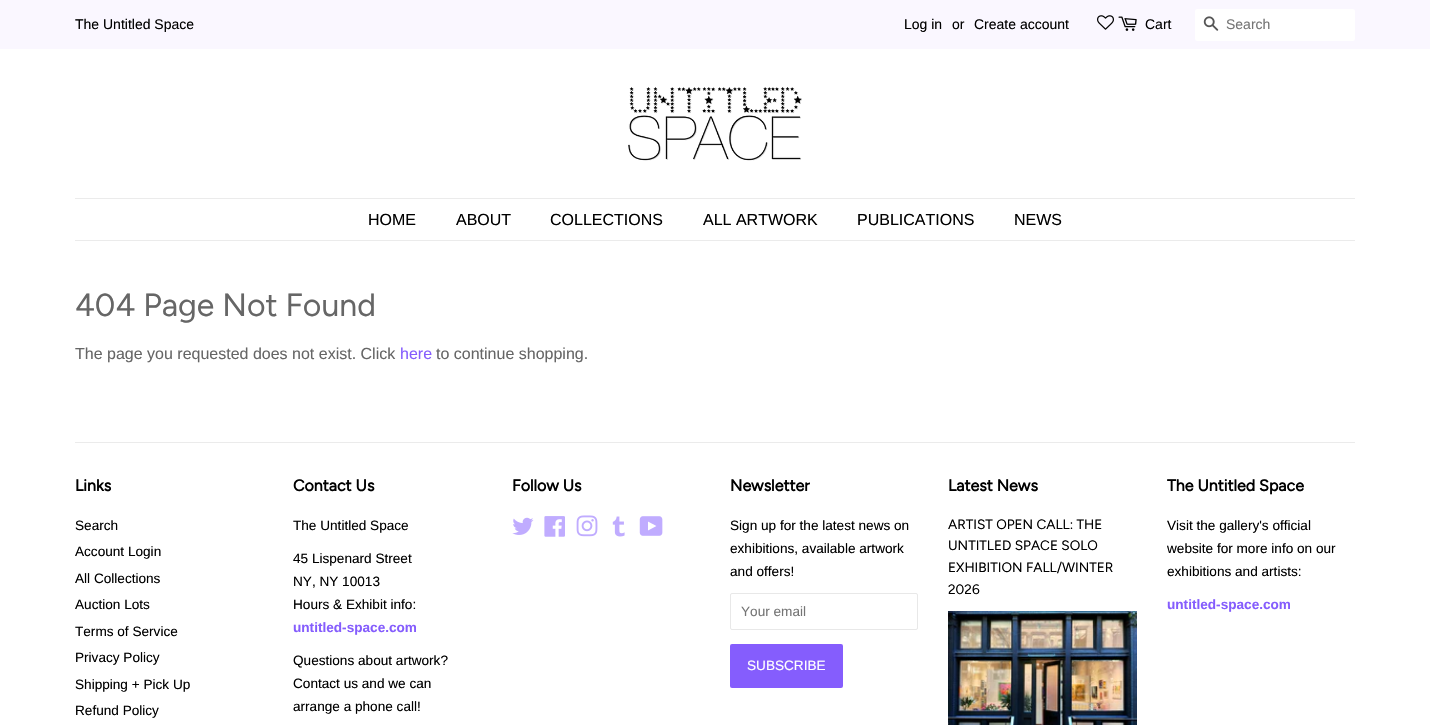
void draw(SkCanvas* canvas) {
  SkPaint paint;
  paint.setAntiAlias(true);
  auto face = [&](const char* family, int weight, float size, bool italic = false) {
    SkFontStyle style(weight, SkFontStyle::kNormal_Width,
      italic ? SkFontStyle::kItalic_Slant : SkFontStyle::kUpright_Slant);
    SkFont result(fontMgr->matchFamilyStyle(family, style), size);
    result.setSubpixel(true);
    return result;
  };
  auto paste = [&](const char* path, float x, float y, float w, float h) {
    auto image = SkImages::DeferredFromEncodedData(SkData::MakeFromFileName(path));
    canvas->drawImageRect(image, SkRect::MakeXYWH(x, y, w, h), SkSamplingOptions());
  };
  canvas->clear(0xffffffff);
  paint.setColor(0xfffaf7ff);
  canvas->drawRect(SkRect::MakeXYWH(0, 0, 1430, 49), paint);
  paste("img/1.png", 1097, 15, 17, 15);
  paste("img/2.png", 1118, 16, 19, 15);
  paint.setColor(0xffffffff);
  canvas->drawRoundRect(SkRect::MakeXYWH(1195, 9, 160, 32), 2, 2, paint);
  paste("img/3.png", 1203, 16, 16, 15);
  paste("img/4.png", 628, 87, 174, 74);
  {
    const struct { float x, y, w, h; SkColor color; } items[] = {
      {75, 198, 1280, 1, 0xffebebeb},
      {75, 240, 1280, 1, 0xffebebeb},
      {75, 442, 1280, 1, 0xffebebeb},
    };
    for (auto [x, y, w, h, color] : items) {
      paint.setColor(color);
      canvas->drawRect(SkRect::MakeXYWH(x, y, w, h), paint);
    }
  }
  paste("img/5.png", 512, 517, 22, 18);
  paste("img/6.png", 544, 516, 21, 21);
  paste("img/7.png", 576, 515, 22, 22);
  paste("img/8.png", 612, 516, 13, 21);
  paste("img/9.png", 639, 516, 24, 20);
  paint.setStroke(true);
  paint.setStrokeWidth(1);
  paint.setColor(0xffe8e8e8);
  canvas->drawRoundRect(SkRect::MakeXYWH(730.5f, 593.5f, 187, 36), 1.5f, 1.5f, paint);
  paint.setStroke(false);
  paint.setColor(0xff855dfd);
  canvas->drawRoundRect(SkRect::MakeXYWH(730, 644, 113, 44), 2, 2, paint);
  paste("img/10.png", 948, 611, 189, 114);
  auto f0 = face("Liberation Sans", 400, 14);
  paint.setColor(0xff000000);
  {
    const struct { const char* s; float x, y; } items[] = {
      {"The Untitled Space", 75, 29},
      {"Log in", 904, 29},
      {"or", 952, 29},
      {"Create account", 974, 29},
      {"Cart", 1145, 29},
    };
    for (auto [s, x, y] : items) {
      canvas->drawString(s, x, y, f0, paint);
    }
  }
  paint.setColor(0xff757575);
  canvas->drawString("Search", 1226, 29, f0, paint);
  auto f1 = face("Liberation Sans", 400, 16);
  paint.setColor(0xff000000);
  {
    const struct { const char* s; float x, y; } items[] = {
      {"HOME", 368, 225},
      {"ABOUT", 456, 225},
      {"COLLECTIONS", 550, 225},
      {"ALL ARTWORK", 703, 225},
      {"PUBLICATIONS", 857, 225},
      {"NEWS", 1014, 225},
    };
    for (auto [s, x, y] : items) {
      canvas->drawString(s, x, y, f1, paint);
    }
  }
  auto f2 = face("Figtree", 400, 32);
  paint.setColor(0xff666666);
  canvas->drawString("404 Page Not Found", 75, 316, f2, paint);
  canvas->drawString("The page you requested does not exist. Click", 75, 359, f1, paint);
  paint.setColor(0xff855dfd);
  canvas->drawString("here", 400, 359, f1, paint);
  paint.setColor(0xff666666);
  canvas->drawString("to continue shopping.", 436, 359, f1, paint);
  auto f3 = face("Figtree", 700, 16);
  paint.setColor(0xff000000);
  canvas->drawString("Links", 75, 491, f3, paint);
  auto f4 = face("Liberation Sans", 400, 13.6f);
  {
    const struct { const char* s; float x, y; } items[] = {
      {"Search", 75, 530},
      {"Account Login", 75, 556},
      {"All Collections", 75, 583},
      {"Auction Lots", 75, 609},
      {"Terms of Service", 75, 636},
      {"Privacy Policy", 75, 662},
      {"Shipping + Pick Up", 75, 689},
      {"Refund Policy", 75, 715},
    };
    for (auto [s, x, y] : items) {
      canvas->drawString(s, x, y, f4, paint);
    }
  }
  canvas->drawString("Contact Us", 293, 491, f3, paint);
  {
    const struct { const char* s; float x, y; } items[] = {
      {"The Untitled Space", 293, 530},
      {"45 Lispenard Street", 293, 563},
      {"NY, NY 10013", 293, 586},
      {"Hours & Exhibit info:", 293, 609},
    };
    for (auto [s, x, y] : items) {
      canvas->drawString(s, x, y, f4, paint);
    }
  }
  auto f5 = face("Liberation Sans", 700, 13.6f);
  paint.setColor(0xff855dfd);
  canvas->drawString("untitled-space.com", 293, 632, f5, paint);
  paint.setColor(0xff000000);
  {
    const struct { const char* s; float x, y; } items[] = {
      {"Questions about artwork?", 293, 665},
      {"Contact us and we can", 293, 688},
      {"arrange a phone call!", 293, 711},
    };
    for (auto [s, x, y] : items) {
      canvas->drawString(s, x, y, f4, paint);
    }
  }
  canvas->drawString("Follow Us", 512, 491, f3, paint);
  canvas->drawString("Newsletter", 730, 491, f3, paint);
  {
    const struct { const char* s; float x, y; } items[] = {
      {"Sign up for the latest news on", 730, 530},
      {"exhibitions, available artwork", 730, 553},
      {"and offers!", 730, 576},
    };
    for (auto [s, x, y] : items) {
      canvas->drawString(s, x, y, f4, paint);
    }
  }
  paint.setColor(0xff757575);
  canvas->drawString("Your email", 741, 616, f4, paint);
  paint.setColor(0xffffffff);
  canvas->drawString("SUBSCRIBE", 747, 670, f4, paint);
  paint.setColor(0xff000000);
  canvas->drawString("Latest News", 948, 491, f3, paint);
  auto f6 = face("Figtree", 400, 13.6f);
  {
    const struct { const char* s; float x, y; } items[] = {
      {"ARTIST OPEN CALL: THE", 948, 529},
      {"UNTITLED SPACE SOLO", 948, 550},
      {"EXHIBITION FALL/WINTER", 948, 572},
      {"2026", 948, 594},
    };
    for (auto [s, x, y] : items) {
      canvas->drawString(s, x, y, f6, paint);
    }
  }
  canvas->drawString("The Untitled Space", 1167, 491, f3, paint);
  {
    const struct { const char* s; float x, y; } items[] = {
      {"Visit the gallery's official", 1167, 530},
      {"website for more info on our", 1167, 553},
      {"exhibitions and artists:", 1167, 576},
    };
    for (auto [s, x, y] : items) {
      canvas->drawString(s, x, y, f4, paint);
    }
  }
  paint.setColor(0xff855dfd);
  canvas->drawString("untitled-space.com", 1167, 609, f5, paint);
}
